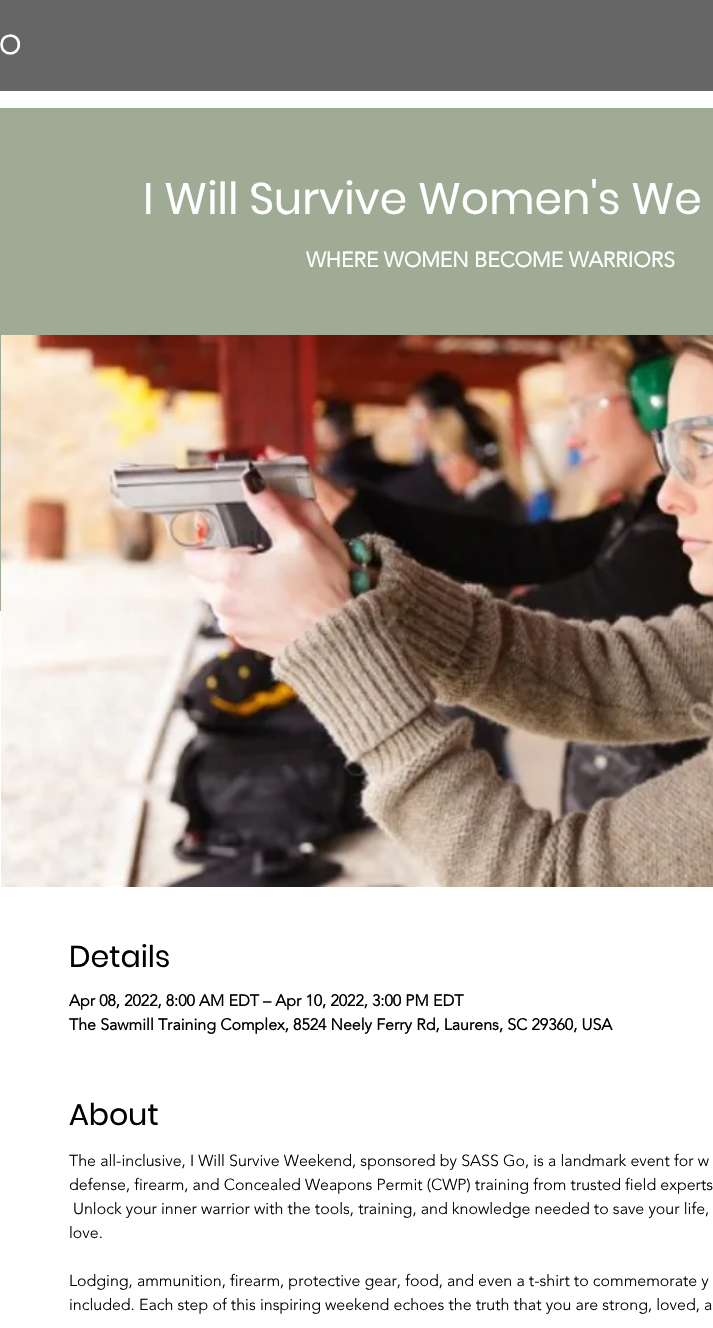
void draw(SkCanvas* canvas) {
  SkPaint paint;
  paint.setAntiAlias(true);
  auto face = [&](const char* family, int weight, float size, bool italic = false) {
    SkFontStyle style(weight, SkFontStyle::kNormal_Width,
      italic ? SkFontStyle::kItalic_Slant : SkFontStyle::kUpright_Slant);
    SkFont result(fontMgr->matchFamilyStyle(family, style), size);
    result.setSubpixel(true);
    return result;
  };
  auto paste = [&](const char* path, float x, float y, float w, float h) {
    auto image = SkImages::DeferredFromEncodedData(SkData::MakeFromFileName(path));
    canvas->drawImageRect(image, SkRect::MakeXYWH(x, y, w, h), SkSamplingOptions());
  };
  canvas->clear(0xffffffff);
  paint.setColor(0xff666666);
  canvas->drawRect(SkRect::MakeXYWH(0, 0, 713, 91), paint);
  paint.setColor(0xff9fab95);
  canvas->drawRect(SkRect::MakeXYWH(0, 108, 713, 503), paint);
  paste("img/1.png", 1, 335, 712, 552);
  auto f0 = face("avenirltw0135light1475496", 700, 26);
  paint.setColor(0xffffffff);
  canvas->drawString("O", -1, 54, f0, paint);
  auto f1 = face("Poppins", 400, 44);
  canvas->drawString("I Will Survive Women's We", 143, 214, f1, paint);
  auto f2 = face("avenirltw0135light1475496", 700, 21);
  canvas->drawString("WHERE WOMEN BECOME WARRIORS", 306, 267, f2, paint);
  auto f3 = face("Poppins", 400, 30);
  paint.setColor(0xff000000);
  canvas->drawString("Details", 69, 967, f3, paint);
  auto f4 = face("avenirltw0135light1475496", 700, 16);
  canvas->drawString("Apr 08, 2022, 8:00 AM EDT – Apr 10, 2022, 3:00 PM EDT", 69, 1006, f4, paint);
  canvas->drawString("The Sawmill Training Complex, 8524 Neely Ferry Rd, Laurens, SC 29360, USA", 69, 1030, f4, paint);
  canvas->drawString("About", 69, 1125, f3, paint);
  auto f5 = face("avenirltw0135light1475496", 300, 16);
  {
    const struct { const char* s; float x, y; } items[] = {
      {"The all-inclusive, I Will Survive Weekend, sponsored by SASS Go, is a landmark event for w", 69, 1166},
      {"defense, firearm, and Concealed Weapons Permit (CWP) training from trusted field experts", 69, 1190},
      {"Unlock your inner warrior with the tools, training, and knowledge needed to save your life,", 73, 1214},
      {"love.", 69, 1238},
      {"Lodging, ammunition, firearm, protective gear, food, and even a t-shirt to commemorate y", 69, 1286},
      {"included. Each step of this inspiring weekend echoes the truth that you are strong, loved, a", 69, 1310},
    };
    for (auto [s, x, y] : items) {
      canvas->drawString(s, x, y, f5, paint);
    }
  }
}
